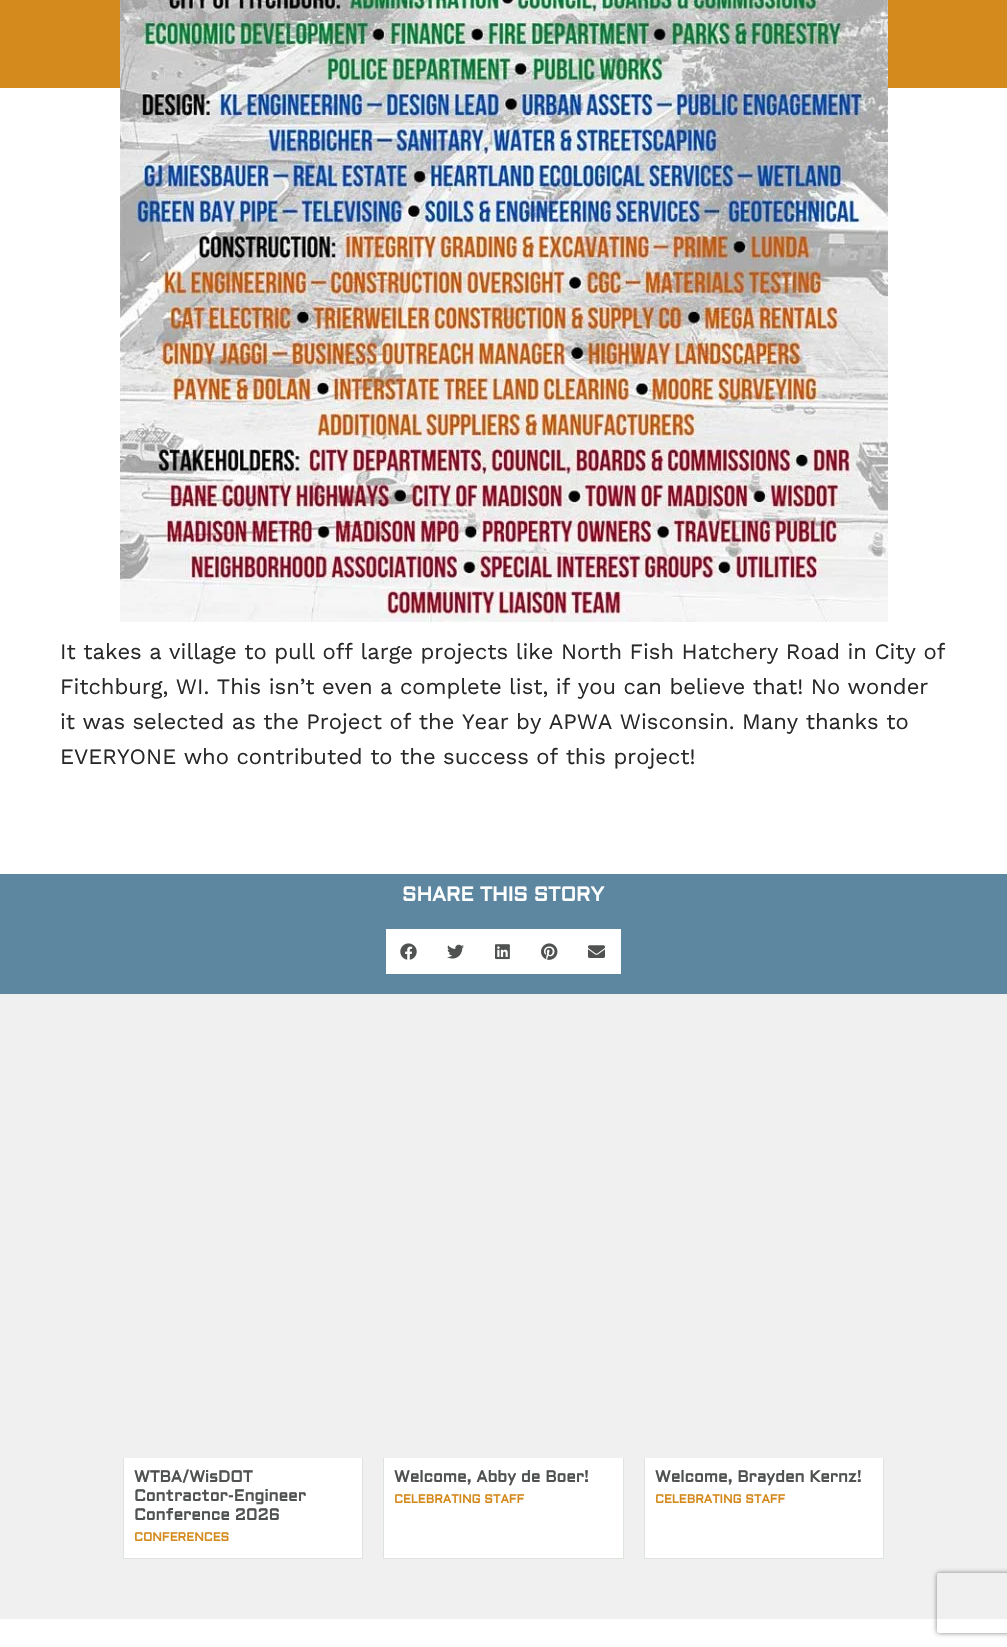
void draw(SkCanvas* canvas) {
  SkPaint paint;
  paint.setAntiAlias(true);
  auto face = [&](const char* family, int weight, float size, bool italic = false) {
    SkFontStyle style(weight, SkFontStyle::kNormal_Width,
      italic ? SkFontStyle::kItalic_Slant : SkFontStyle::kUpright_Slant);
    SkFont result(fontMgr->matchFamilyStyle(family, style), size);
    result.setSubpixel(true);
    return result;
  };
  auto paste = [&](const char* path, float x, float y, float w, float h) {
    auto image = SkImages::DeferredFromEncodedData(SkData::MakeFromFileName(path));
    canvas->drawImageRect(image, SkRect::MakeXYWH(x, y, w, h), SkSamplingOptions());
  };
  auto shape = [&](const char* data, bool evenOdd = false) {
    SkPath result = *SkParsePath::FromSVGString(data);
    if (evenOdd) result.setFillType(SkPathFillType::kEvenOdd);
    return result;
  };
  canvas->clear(0xffffffff);
  paint.setColor(0xffd48a1d);
  canvas->drawRect(SkRect::MakeXYWH(0, 0, 1007, 88), paint);
  paste("img/1.png", 120, 0, 768, 622);
  paint.setColor(0xff5d87a1);
  canvas->drawRect(SkRect::MakeXYWH(0, 874, 1007, 120), paint);
  paint.setStroke(true);
  paint.setStrokeWidth(2);
  paint.setColor(0xffffffff);
  canvas->drawRect(SkRect::MakeXYWH(387, 930, 45, 43), paint);
  paint.setStroke(false);
  canvas->drawRect(SkRect::MakeXYWH(388, 931, 43, 41), paint);
  paste("img/2.png", 400, 943, 17, 17);
  paint.setStroke(true);
  canvas->drawRect(SkRect::MakeXYWH(434, 930, 45, 43), paint);
  paint.setStroke(false);
  canvas->drawRect(SkRect::MakeXYWH(435, 931, 43, 41), paint);
  paste("img/3.png", 447, 944, 17, 15);
  paint.setStroke(true);
  canvas->drawRect(SkRect::MakeXYWH(481, 930, 45, 43), paint);
  paint.setStroke(false);
  canvas->drawRect(SkRect::MakeXYWH(482, 931, 43, 41), paint);
  paste("img/4.png", 495, 944, 15, 16);
  paint.setStroke(true);
  canvas->drawRect(SkRect::MakeXYWH(528, 930, 45, 43), paint);
  paint.setStroke(false);
  canvas->drawRect(SkRect::MakeXYWH(529, 931, 43, 41), paint);
  paste("img/5.png", 541, 943, 17, 17);
  paint.setStroke(true);
  canvas->drawRect(SkRect::MakeXYWH(575, 930, 45, 43), paint);
  paint.setStroke(false);
  canvas->drawRect(SkRect::MakeXYWH(576, 931, 43, 41), paint);
  paste("img/6.png", 588, 945, 17, 13);
  {
    const struct { float x, y, w, h; SkColor color; } items[] = {
      {0, 994, 1007, 625, 0xfff0f0f0},
      {362, 1458, 1, 101, 0xffdce4dd},
      {123, 1558, 240, 1, 0xffdce4dd},
      {123, 1458, 1, 101, 0xffdce4dd},
      {124, 1458, 238, 100, 0xffffffff},
      {623, 1458, 1, 101, 0xffdce4dd},
      {383, 1558, 241, 1, 0xffdce4dd},
      {383, 1458, 1, 101, 0xffdce4dd},
      {384, 1458, 239, 100, 0xffffffff},
      {883, 1458, 1, 101, 0xffdce4dd},
      {644, 1558, 240, 1, 0xffdce4dd},
      {644, 1458, 1, 101, 0xffdce4dd},
      {645, 1458, 238, 100, 0xffffffff},
    };
    for (auto [x, y, w, h, color] : items) {
      paint.setColor(color);
      canvas->drawRect(SkRect::MakeXYWH(x, y, w, h), paint);
    }
  }
  canvas->save();
  canvas->clipPath(shape("M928 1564H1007V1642H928ZM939 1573H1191C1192 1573 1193 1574 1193 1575V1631C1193 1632 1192 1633 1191 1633H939C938 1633 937 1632 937 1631V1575C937 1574 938 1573 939 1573Z", true), true);
  paint.setColor(0xff808080);
  paint.setMaskFilter(SkMaskFilter::MakeBlur(kNormal_SkBlurStyle, 2.5f));
  canvas->drawRoundRect(SkRect::MakeXYWH(937, 1573, 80, 60), 2, 2, paint);
  paint.setMaskFilter(nullptr);
  canvas->restore();
  auto f0 = face("Work Sans", 400, 22);
  paint.setColor(0xff282828);
  {
    const struct { const char* s; float x, y; } items[] = {
      {"It takes a village to pull off large projects like North Fish Hatchery Road in City of", 60, 659},
      {"Fitchburg, WI. This isn’t even a complete list, if you can believe that! No wonder", 60, 694},
      {"it was selected as the Project of the Year by APWA Wisconsin. Many thanks to", 60, 729},
      {"EVERYONE who contributed to the success of this project!", 60, 764},
    };
    for (auto [s, x, y] : items) {
      canvas->drawString(s, x, y, f0, paint);
    }
  }
  auto f1 = face("Aldrich", 700, 20);
  paint.setColor(0xffffffff);
  canvas->drawString("SHARE THIS STORY", 402, 901, f1, paint);
  auto f2 = face("Aldrich", 700, 16);
  paint.setColor(0xff4f5251);
  {
    const struct { const char* s; float x, y; } items[] = {
      {"WTBA/WisDOT", 134, 1482},
      {"Contractor-Engineer", 134, 1501},
      {"Conference 2026", 134, 1520},
    };
    for (auto [s, x, y] : items) {
      canvas->drawString(s, x, y, f2, paint);
    }
  }
  auto f3 = face("Aldrich", 700, 12);
  paint.setColor(0xffd48a1d);
  canvas->drawString("CONFERENCES", 134, 1541, f3, paint);
  paint.setColor(0xff4f5251);
  canvas->drawString("Welcome, Abby de Boer!", 394, 1482, f2, paint);
  paint.setColor(0xffd48a1d);
  canvas->drawString("CELEBRATING STAFF", 394, 1503, f3, paint);
  paint.setColor(0xff4f5251);
  canvas->drawString("Welcome, Brayden Kernz!", 655, 1482, f2, paint);
  paint.setColor(0xffd48a1d);
  canvas->drawString("CELEBRATING STAFF", 655, 1503, f3, paint);
}
